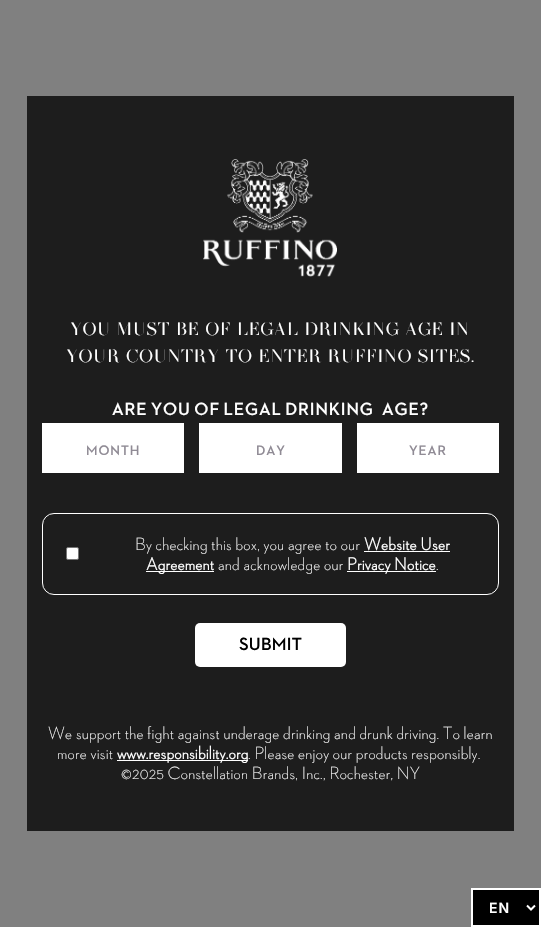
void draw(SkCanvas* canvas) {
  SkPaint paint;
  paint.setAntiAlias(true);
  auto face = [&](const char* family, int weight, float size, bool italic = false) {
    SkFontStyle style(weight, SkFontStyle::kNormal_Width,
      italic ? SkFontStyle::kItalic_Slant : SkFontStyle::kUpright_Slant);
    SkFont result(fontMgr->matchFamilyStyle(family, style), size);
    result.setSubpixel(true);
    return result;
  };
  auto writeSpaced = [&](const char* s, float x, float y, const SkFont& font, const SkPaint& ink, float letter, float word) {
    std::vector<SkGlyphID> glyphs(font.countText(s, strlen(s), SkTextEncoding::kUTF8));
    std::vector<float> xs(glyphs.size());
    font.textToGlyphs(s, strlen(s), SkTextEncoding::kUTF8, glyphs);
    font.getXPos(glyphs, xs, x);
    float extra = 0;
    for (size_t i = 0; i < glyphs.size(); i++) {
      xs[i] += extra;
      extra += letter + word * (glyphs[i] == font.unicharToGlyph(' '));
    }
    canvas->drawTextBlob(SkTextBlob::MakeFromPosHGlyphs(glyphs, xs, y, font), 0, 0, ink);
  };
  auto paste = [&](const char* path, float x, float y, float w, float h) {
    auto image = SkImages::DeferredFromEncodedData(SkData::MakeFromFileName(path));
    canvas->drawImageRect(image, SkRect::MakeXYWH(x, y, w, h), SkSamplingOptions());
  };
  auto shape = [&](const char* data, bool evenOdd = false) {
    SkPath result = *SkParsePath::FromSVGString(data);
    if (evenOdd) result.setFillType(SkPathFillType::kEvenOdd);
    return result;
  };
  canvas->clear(0xff808080);
  paint.setColor(0xff1d1d1d);
  canvas->drawRect(SkRect::MakeXYWH(27, 96, 487, 735), paint);
  paste("img/1.png", 203, 159, 134, 118);
  {
    const struct { float x, y, w, h; SkColor color; } items[] = {
      {42, 423, 142, 50, 0xffffffff},
      {199, 423, 143, 50, 0xffffffff},
      {357, 423, 142, 50, 0xffffffff},
    };
    for (auto [x, y, w, h, color] : items) {
      paint.setColor(color);
      canvas->drawRect(SkRect::MakeXYWH(x, y, w, h), paint);
    }
  }
  paint.setStroke(true);
  paint.setStrokeWidth(1);
  canvas->drawRoundRect(SkRect::MakeXYWH(42.5f, 513.5f, 456, 81), 11.5f, 11.5f, paint);
  paint.setStroke(false);
  canvas->drawRoundRect(SkRect::MakeXYWH(66.5f, 547.5f, 12, 12), 1.5f, 1.5f, paint);
  paint.setStroke(true);
  paint.setColor(0xff767676);
  canvas->drawRoundRect(SkRect::MakeXYWH(66.5f, 547.5f, 12, 12), 1.5f, 1.5f, paint);
  paint.setStroke(false);
  {
    const struct { float x, y, w, h; SkColor color; } items[] = {
      {364, 551, 86, 1, 0xffffffff},
      {146, 571, 68, 1, 0xffffffff},
      {347, 571, 89, 1, 0xffffffff},
    };
    for (auto [x, y, w, h, color] : items) {
      paint.setColor(color);
      canvas->drawRect(SkRect::MakeXYWH(x, y, w, h), paint);
    }
  }
  canvas->drawRoundRect(SkRect::MakeXYWH(195, 623, 151, 44), 5, 5, paint);
  canvas->drawRect(SkRect::MakeXYWH(117, 760, 131, 1), paint);
  paint.setColor(0xff000000);
  canvas->drawRect(SkRect::MakeXYWH(472, 889, 68, 37), paint);
  paint.setStroke(true);
  paint.setStrokeWidth(2);
  paint.setColor(0xffffffff);
  canvas->drawRect(SkRect::MakeXYWH(472, 889, 68, 37), paint);
  canvas->drawPath(shape("M527 905.5L531 909.5L535 905.5"), paint);
  auto f0 = face("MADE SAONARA", 400, 18);
  paint.setStroke(false);
  writeSpaced("YOU MUST BE OF LEGAL DRINKING AGE IN", 70, 335, f0, paint, 0.95f, 0);
  writeSpaced("YOUR COUNTRY TO ENTER RUFFINO SITES.", 66, 362, f0, paint, 0.95f, 0);
  auto f1 = face("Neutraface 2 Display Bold", 700, 18);
  writeSpaced("ARE YOU OF LEGAL DRINKING", 112, 415, f1, paint, 0.95f, -0.75f);
  writeSpaced("AGE?", 382, 415, f1, paint, 0.95f, -0.75f);
  auto f2 = face("Neutraface 2 Display Bold", 700, 14);
  paint.setColor(0xff908b95);
  {
    const struct { const char* s; float x, y; } items[] = {
      {"MONTH", 86, 455},
      {"DAY", 256, 455},
      {"YEAR", 409, 455},
    };
    for (auto [s, x, y] : items) {
      writeSpaced(s, x, y, f2, paint, 0.95f, 0);
    }
  }
  auto f3 = face("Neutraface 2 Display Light", 300, 18);
  paint.setColor(0xffffffff);
  writeSpaced("By checking this box, you agree to our", 135, 550, f3, paint, 0.28f, 0);
  auto f4 = face("Neutraface 2 Display Light", 700, 18);
  writeSpaced("Website User", 364, 550, f4, paint, 0.28f, 0);
  writeSpaced("Agreement", 146, 570, f4, paint, 0.28f, 0);
  writeSpaced("and acknowledge our", 218, 570, f3, paint, 0.28f, 0);
  writeSpaced("Privacy Notice", 347, 570, f4, paint, 0.28f, 0);
  writeSpaced(".", 436, 570, f3, paint, 0.28f, 0);
  paint.setColor(0xff000000);
  writeSpaced("SUBMIT", 239, 650, f1, paint, 0.25f, 0);
  paint.setColor(0xffffffff);
  writeSpaced("We support the fight against underage drinking and drunk driving. To learn", 48, 739, f3, paint, 0.28f, 0);
  writeSpaced("more visit", 57, 759, f3, paint, 0.28f, 0);
  writeSpaced("www.responsibility.org", 117, 759, f4, paint, 0.28f, 0);
  writeSpaced(". Please enjoy our products responsibly.", 248, 759, f3, paint, 0.28f, 0);
  writeSpaced("©2025 Constellation Brands, Inc., Rochester, NY", 121, 779, f3, paint, 0.28f, 0);
  auto f5 = face("Inter", 600, 14);
  writeSpaced("EN", 489, 913, f5, paint, 0.95f, 0);
}
